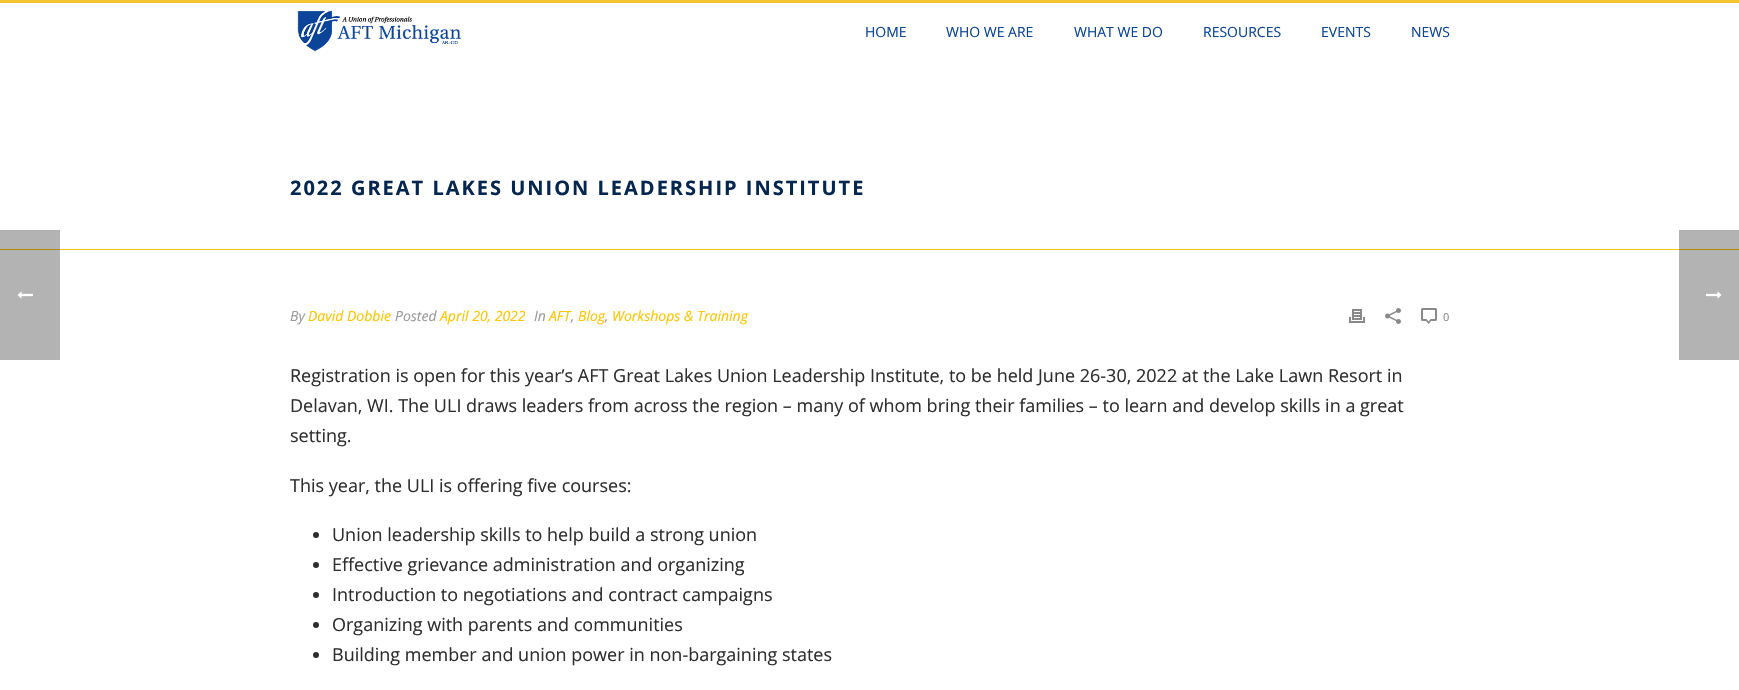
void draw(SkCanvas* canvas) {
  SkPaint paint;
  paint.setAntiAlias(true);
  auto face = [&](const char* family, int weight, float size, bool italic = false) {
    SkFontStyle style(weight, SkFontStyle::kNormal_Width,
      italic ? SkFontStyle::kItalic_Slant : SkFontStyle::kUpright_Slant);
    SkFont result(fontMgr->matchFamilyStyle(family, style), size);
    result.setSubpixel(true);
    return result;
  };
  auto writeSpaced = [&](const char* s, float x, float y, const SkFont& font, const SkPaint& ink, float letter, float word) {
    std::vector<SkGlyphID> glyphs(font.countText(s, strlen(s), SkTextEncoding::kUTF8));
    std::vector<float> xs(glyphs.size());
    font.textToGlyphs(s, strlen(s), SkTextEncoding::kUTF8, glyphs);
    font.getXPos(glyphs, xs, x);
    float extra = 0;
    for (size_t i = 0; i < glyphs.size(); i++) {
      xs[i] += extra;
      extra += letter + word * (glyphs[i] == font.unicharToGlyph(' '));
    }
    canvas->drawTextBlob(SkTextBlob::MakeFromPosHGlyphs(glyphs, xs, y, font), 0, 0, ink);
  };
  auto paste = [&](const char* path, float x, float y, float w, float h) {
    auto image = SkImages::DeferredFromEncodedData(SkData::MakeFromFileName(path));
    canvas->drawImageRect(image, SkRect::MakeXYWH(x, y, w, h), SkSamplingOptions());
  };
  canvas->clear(0xffffffff);
  paint.setColor(0xffb3b3b3);
  canvas->drawRect(SkRect::MakeXYWH(1679, 230, 60, 130), paint);
  canvas->drawRect(SkRect::MakeXYWH(0, 230, 60, 130), paint);
  paste("img/1.png", 17, 291, 16, 8);
  {
    const struct { float x, y, w, h; SkColor color; } items[] = {
      {60, 249, 1619, 1, 0xfffdc502},
      {1679, 249, 60, 1, 0xffb18a01},
      {0, 249, 60, 1, 0xffb18a01},
      {0, 0, 1739, 3, 0xfff6c333},
    };
    for (auto [x, y, w, h, color] : items) {
      paint.setColor(color);
      canvas->drawRect(SkRect::MakeXYWH(x, y, w, h), paint);
    }
  }
  paste("img/2.png", 297, 11, 164, 41);
  paste("img/3.png", 1349, 309, 16, 14);
  paste("img/4.png", 1385, 308, 16, 16);
  paste("img/5.png", 1421, 308, 16, 16);
  paint.setColor(0xff2e2e2e);
  canvas->drawCircle(316, 535, 3, paint);
  canvas->drawCircle(316, 565, 3, paint);
  canvas->drawCircle(316, 595, 3, paint);
  canvas->drawCircle(316, 625, 3, paint);
  canvas->drawCircle(316, 655, 3, paint);
  paste("img/6.png", 1706, 291, 16, 8);
  auto f0 = face("Open Sans", 400, 14);
  paint.setColor(0xff0b4497);
  {
    const struct { const char* s; float x, y; } items[] = {
      {"HOME", 865, 37},
      {"WHO WE ARE", 946, 37},
      {"WHAT WE DO", 1074, 37},
      {"RESOURCES", 1203, 37},
      {"EVENTS", 1321, 37},
      {"NEWS", 1411, 37},
    };
    for (auto [s, x, y] : items) {
      canvas->drawString(s, x, y, f0, paint);
    }
  }
  auto f1 = face("Open Sans", 700, 20);
  paint.setColor(0xff05274f);
  writeSpaced("2022 GREAT LAKES UNION LEADERSHIP INSTITUTE", 290, 195, f1, paint, 2, 0);
  auto f2 = face("Open Sans", 400, 14, true);
  paint.setColor(0xff999999);
  canvas->drawString("By", 290, 321, f2, paint);
  paint.setColor(0xfffdc502);
  canvas->drawString("David Dobbie", 308, 321, f2, paint);
  paint.setColor(0xff999999);
  canvas->drawString("Posted", 395, 321, f2, paint);
  paint.setColor(0xfffdc502);
  canvas->drawString("April 20, 2022", 440, 321, f2, paint);
  paint.setColor(0xff999999);
  canvas->drawString("In", 534, 321, f2, paint);
  paint.setColor(0xfffdc502);
  {
    const struct { const char* s; float x, y; } items[] = {
      {"AFT", 549, 321},
      {"Blog", 578, 321},
      {"Workshops & Training", 612, 321},
    };
    for (auto [s, x, y] : items) {
      canvas->drawString(s, x, y, f2, paint);
    }
  }
  paint.setColor(0xff999999);
  canvas->drawString(",", 571, 321, f2, paint);
  canvas->drawString(",", 605, 321, f2, paint);
  auto f3 = face("Open Sans", 400, 11);
  paint.setColor(0xff898989);
  canvas->drawString("0", 1443, 321, f3, paint);
  auto f4 = face("Open Sans", 400, 18);
  paint.setColor(0xff2e2e2e);
  {
    const struct { const char* s; float x, y; } items[] = {
      {"Registration is open for this year’s AFT Great Lakes Union Leadership Institute, to be held June 26-30, 2022 at the Lake Lawn Resort in", 290, 382},
      {"Delavan, WI. The ULI draws leaders from across the region – many of whom bring their families – to learn and develop skills in a great", 290, 412},
      {"setting.", 290, 442},
      {"This year, the ULI is offering five courses:", 290, 492},
      {"Union leadership skills to help build a strong union", 332, 541},
      {"Effective grievance administration and organizing", 332, 571},
      {"Introduction to negotiations and contract campaigns", 332, 601},
      {"Organizing with parents and communities", 332, 631},
      {"Building member and union power in non-bargaining states", 332, 661},
    };
    for (auto [s, x, y] : items) {
      canvas->drawString(s, x, y, f4, paint);
    }
  }
}
